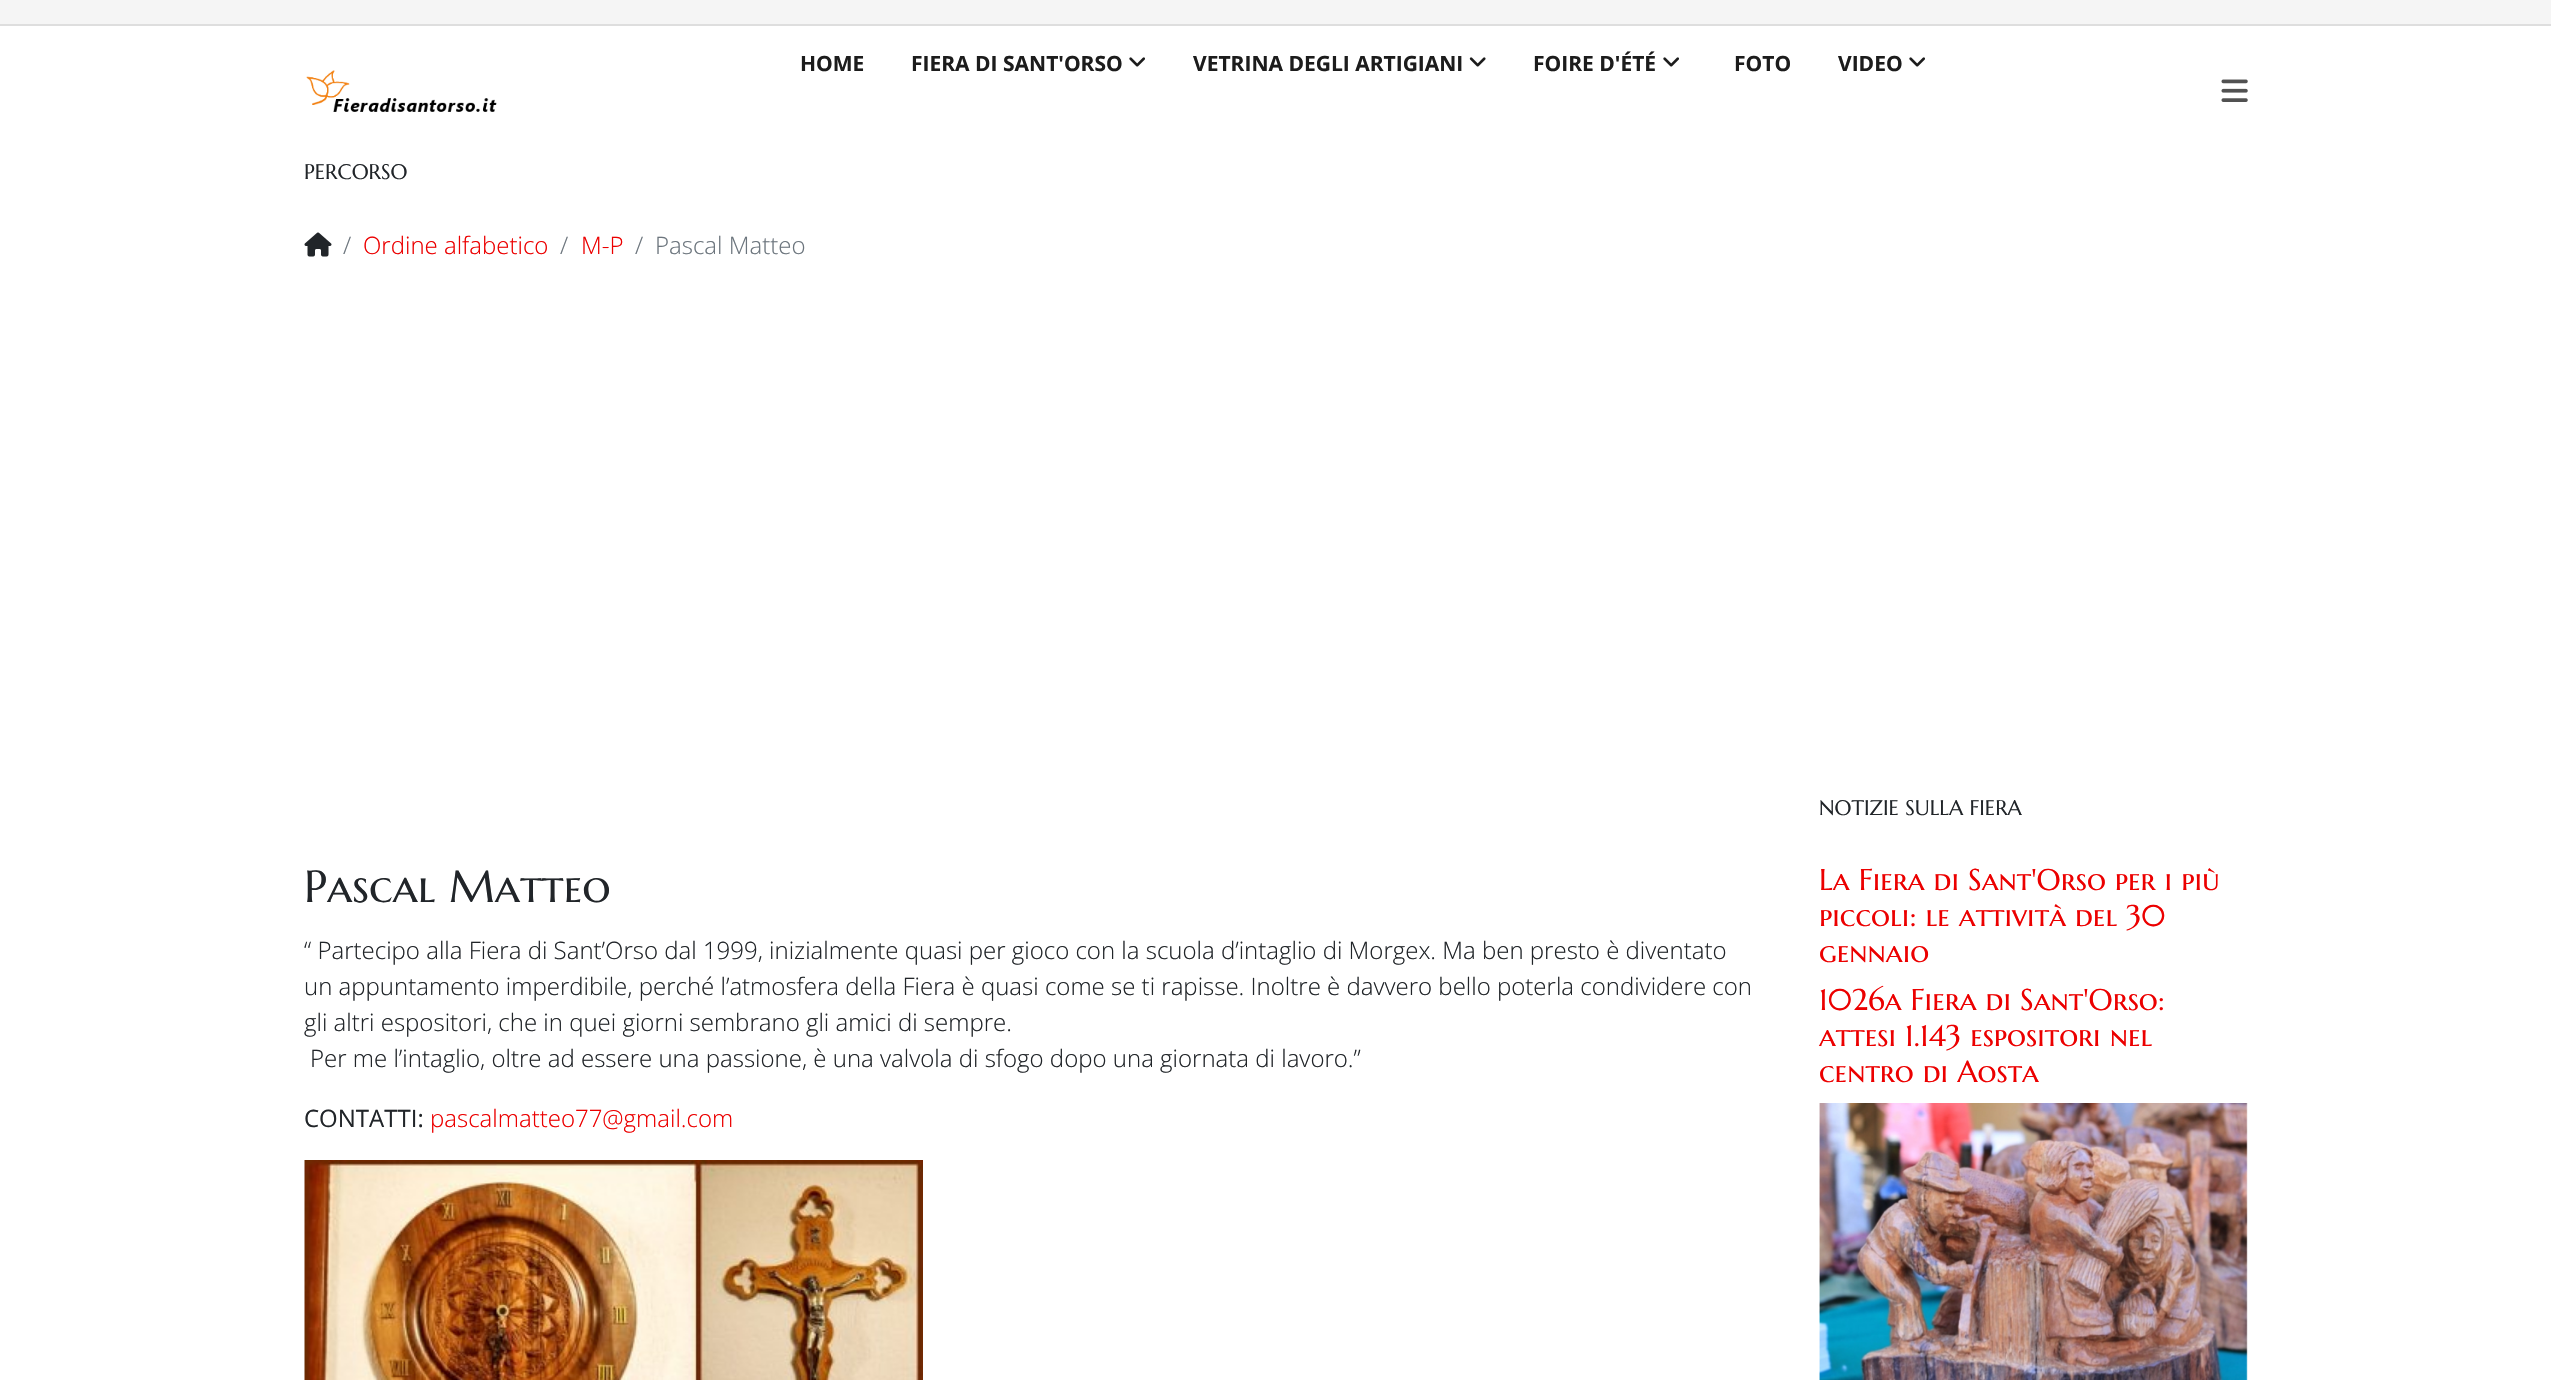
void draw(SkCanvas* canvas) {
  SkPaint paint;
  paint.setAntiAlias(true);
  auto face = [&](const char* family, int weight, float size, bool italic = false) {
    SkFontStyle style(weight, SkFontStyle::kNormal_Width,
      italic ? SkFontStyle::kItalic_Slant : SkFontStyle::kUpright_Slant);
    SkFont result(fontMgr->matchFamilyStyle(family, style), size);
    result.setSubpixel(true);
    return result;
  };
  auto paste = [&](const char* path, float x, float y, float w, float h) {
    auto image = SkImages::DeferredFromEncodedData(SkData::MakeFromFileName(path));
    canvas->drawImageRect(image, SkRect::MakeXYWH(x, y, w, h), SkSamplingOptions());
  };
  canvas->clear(0xffffffff);
  paint.setColor(0xfff5f5f5);
  canvas->drawRect(SkRect::MakeXYWH(0, 0, 2551, 24), paint);
  paint.setColor(0xffdedede);
  canvas->drawRect(SkRect::MakeXYWH(0, 24, 2551, 2), paint);
  paste("img/1.png", 1129, 57, 16, 10);
  paste("img/2.png", 1469, 57, 17, 10);
  paste("img/1.png", 1663, 57, 16, 10);
  paste("img/1.png", 1909, 57, 16, 10);
  paste("img/3.png", 2221, 79, 27, 23);
  paste("img/4.png", 306, 70, 191, 42);
  paste("img/5.png", 304, 232, 28, 25);
  paste("img/6.png", 304, 1160, 619, 220);
  paste("img/7.png", 1819, 1103, 429, 277);
  auto f0 = face("Open Sans", 700, 21);
  paint.setColor(0xff1c1c1c);
  {
    const struct { const char* s; float x, y; } items[] = {
      {"HOME", 800, 71},
      {"FIERA DI SANT'ORSO", 911, 71},
      {"VETRINA DEGLI ARTIGIANI", 1193, 71},
      {"FOIRE D'ÉTÉ", 1533, 71},
      {"FOTO", 1734, 71},
      {"VIDEO", 1838, 71},
    };
    for (auto [s, x, y] : items) {
      canvas->drawString(s, x, y, f0, paint);
    }
  }
  auto f1 = face("Marcellus SC", 400, 21);
  paint.setColor(0xff212529);
  canvas->drawString("PERCORSO", 304, 179, f1, paint);
  auto f2 = face("Open Sans", 300, 24);
  paint.setColor(0xff6c757d);
  canvas->drawString("/", 343, 254, f2, paint);
  paint.setColor(0xffec0000);
  canvas->drawString("Ordine alfabetico", 363, 254, f2, paint);
  paint.setColor(0xff6c757d);
  canvas->drawString("/", 560, 254, f2, paint);
  paint.setColor(0xffec0000);
  canvas->drawString("M-P", 581, 254, f2, paint);
  paint.setColor(0xff6c757d);
  canvas->drawString("/", 635, 254, f2, paint);
  canvas->drawString("Pascal Matteo", 655, 254, f2, paint);
  auto f3 = face("Marcellus SC", 400, 45);
  paint.setColor(0xff212529);
  canvas->drawString("Pascal Matteo", 304, 902, f3, paint);
  {
    const struct { const char* s; float x, y; } items[] = {
      {"“ Partecipo alla Fiera di Sant’Orso dal 1999, inizialmente quasi per gioco con la scuola d’intaglio di Morgex. Ma ben presto è diventato", 304, 959},
      {"un appuntamento imperdibile, perché l’atmosfera della Fiera è quasi come se ti rapisse. Inoltre è davvero bello poterla condividere con", 304, 995},
      {"gli altri espositori, che in quei giorni sembrano gli amici di sempre.", 304, 1031},
      {"Per me l’intaglio, oltre ad essere una passione, è una valvola di sfogo dopo una giornata di lavoro.”", 310, 1067},
    };
    for (auto [s, x, y] : items) {
      canvas->drawString(s, x, y, f2, paint);
    }
  }
  auto f4 = face("Open Sans", 400, 24);
  canvas->drawString("CONTATTI:", 304, 1127, f4, paint);
  paint.setColor(0xffec0000);
  canvas->drawString("pascalmatteo77@gmail.com", 430, 1127, f2, paint);
  paint.setColor(0xff212529);
  canvas->drawString("NOTIZIE SULLA FIERA", 1819, 815, f1, paint);
  auto f5 = face("Marcellus SC", 400, 30);
  paint.setColor(0xffec0000);
  {
    const struct { const char* s; float x, y; } items[] = {
      {"La Fiera di Sant'Orso per i più", 1819, 890},
      {"piccoli: le attività del 30", 1819, 926},
      {"gennaio", 1819, 962},
      {"1026a Fiera di Sant'Orso:", 1819, 1010},
      {"attesi 1.143 espositori nel", 1819, 1046},
      {"centro di Aosta", 1819, 1082},
    };
    for (auto [s, x, y] : items) {
      canvas->drawString(s, x, y, f5, paint);
    }
  }
}
